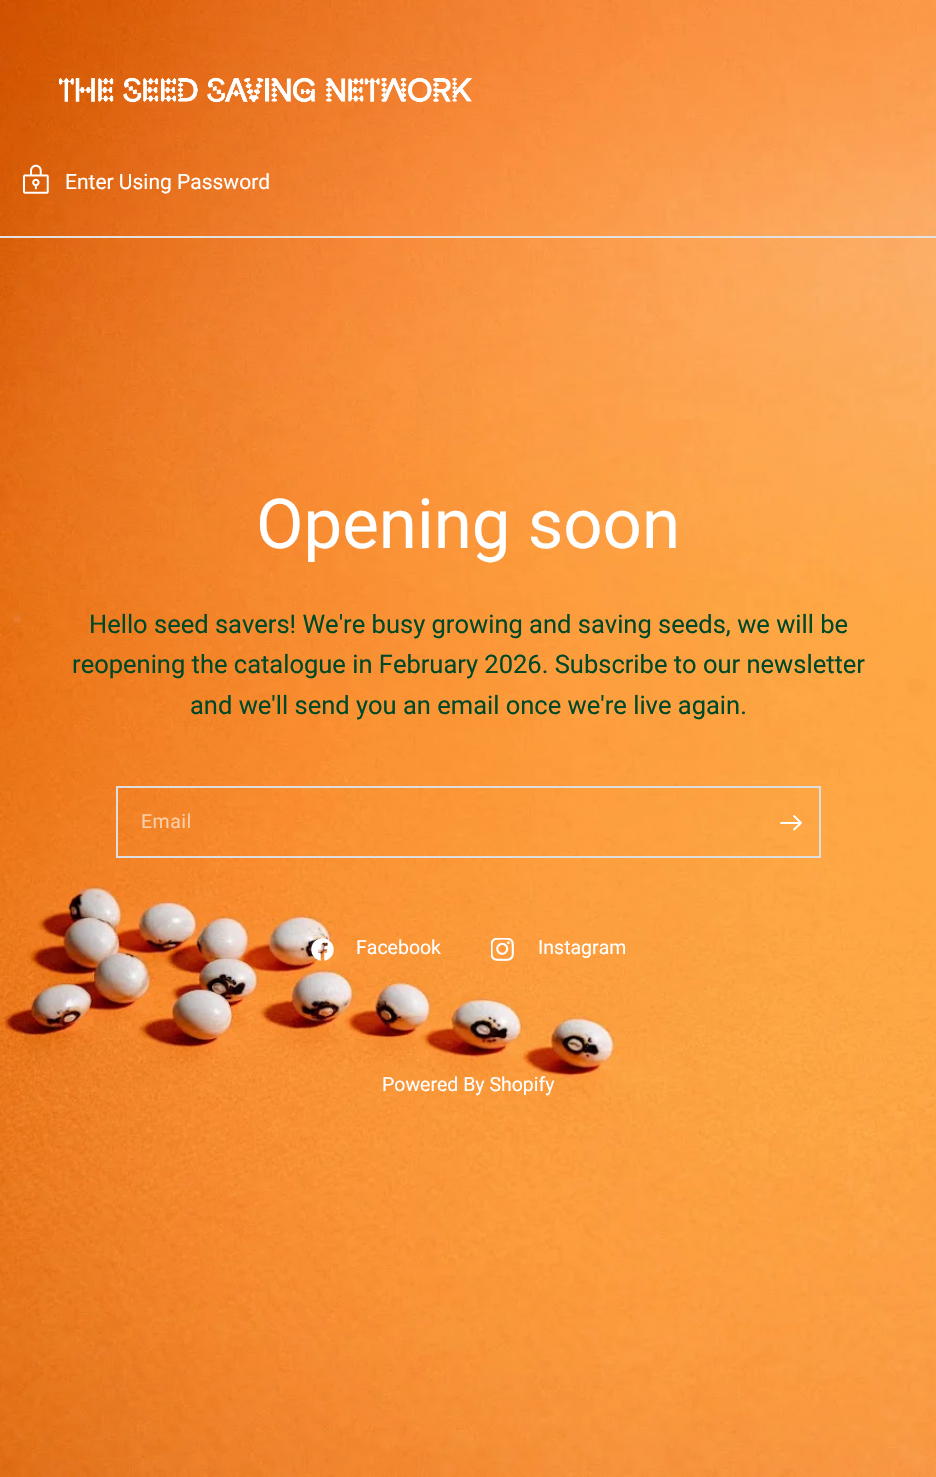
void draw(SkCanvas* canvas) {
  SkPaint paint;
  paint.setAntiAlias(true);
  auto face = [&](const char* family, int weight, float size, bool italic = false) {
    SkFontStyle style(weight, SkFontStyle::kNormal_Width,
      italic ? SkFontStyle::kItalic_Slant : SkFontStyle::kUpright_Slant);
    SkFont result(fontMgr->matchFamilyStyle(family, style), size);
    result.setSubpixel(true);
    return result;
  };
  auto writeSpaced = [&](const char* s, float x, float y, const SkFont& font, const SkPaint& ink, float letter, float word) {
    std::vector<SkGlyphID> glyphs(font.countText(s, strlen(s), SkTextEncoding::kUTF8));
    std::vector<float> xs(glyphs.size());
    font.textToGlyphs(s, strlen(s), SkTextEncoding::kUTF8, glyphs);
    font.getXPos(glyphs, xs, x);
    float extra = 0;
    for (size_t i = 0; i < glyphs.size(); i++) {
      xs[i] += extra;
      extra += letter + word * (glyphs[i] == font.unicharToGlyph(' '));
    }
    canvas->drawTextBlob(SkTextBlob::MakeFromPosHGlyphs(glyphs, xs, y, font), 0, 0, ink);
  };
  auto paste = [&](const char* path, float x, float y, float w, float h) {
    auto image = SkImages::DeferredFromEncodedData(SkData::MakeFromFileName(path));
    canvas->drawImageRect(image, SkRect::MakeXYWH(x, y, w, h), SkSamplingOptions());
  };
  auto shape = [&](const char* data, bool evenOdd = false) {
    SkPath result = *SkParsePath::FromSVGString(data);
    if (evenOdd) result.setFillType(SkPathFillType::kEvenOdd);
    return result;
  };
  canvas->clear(0xffffffff);
  paste("img/1.png", 0, 0, 936, 1477);
  paint.setColor(0xffe2e2e2);
  canvas->drawRect(SkRect::MakeXYWH(0, 236, 936, 2), paint);
  paste("img/2.png", 58, 77, 414, 26);
  paste("img/3.png", 23, 164, 26, 30);
  paint.setStroke(true);
  paint.setStrokeWidth(2);
  paint.setColor(0xffdedede);
  canvas->drawRect(SkRect::MakeXYWH(117, 787, 703, 70), paint);
  paint.setStrokeWidth(1.8f);
  paint.setStrokeCap(SkPaint::kRound_Cap);
  paint.setStrokeJoin(SkPaint::kRound_Join);
  paint.setColor(0xffffffff);
  canvas->drawPath(shape("M781 823H799M794 816L801 823L794 829.5"), paint);
  paste("img/4.png", 311, 938, 23, 23);
  paste("img/5.png", 491, 938, 23, 23);
  auto f0 = face("Roboto", 400, 21);
  paint.setStroke(false);
  canvas->drawString("Enter Using Password", 65, 189, f0, paint);
  auto f1 = face("Roboto", 400, 69);
  canvas->drawString("Opening soon", 256, 548, f1, paint);
  auto f2 = face("Roboto", 400, 25.5f);
  paint.setColor(0xff004926);
  {
    const struct { const char* s; float x, y; } items[] = {
      {"Hello seed savers! We're busy growing and saving seeds, we will be", 89, 633},
      {"reopening the catalogue in February 2026. Subscribe to our newsletter", 72, 673},
      {"and we'll send you an email once we're live again.", 190, 714},
    };
    for (auto [s, x, y] : items) {
      canvas->drawString(s, x, y, f2, paint);
    }
  }
  auto f3 = face("Roboto", 400, 19.5f);
  paint.setColor(0xfffacea9);
  writeSpaced("Email", 141, 828, f3, paint, 0.5f, 0);
  paint.setColor(0xffffffff);
  {
    const struct { const char* s; float x, y; } items[] = {
      {"Facebook", 356, 954},
      {"Instagram", 538, 954},
      {"Powered By Shopify", 382, 1091},
    };
    for (auto [s, x, y] : items) {
      canvas->drawString(s, x, y, f3, paint);
    }
  }
}
